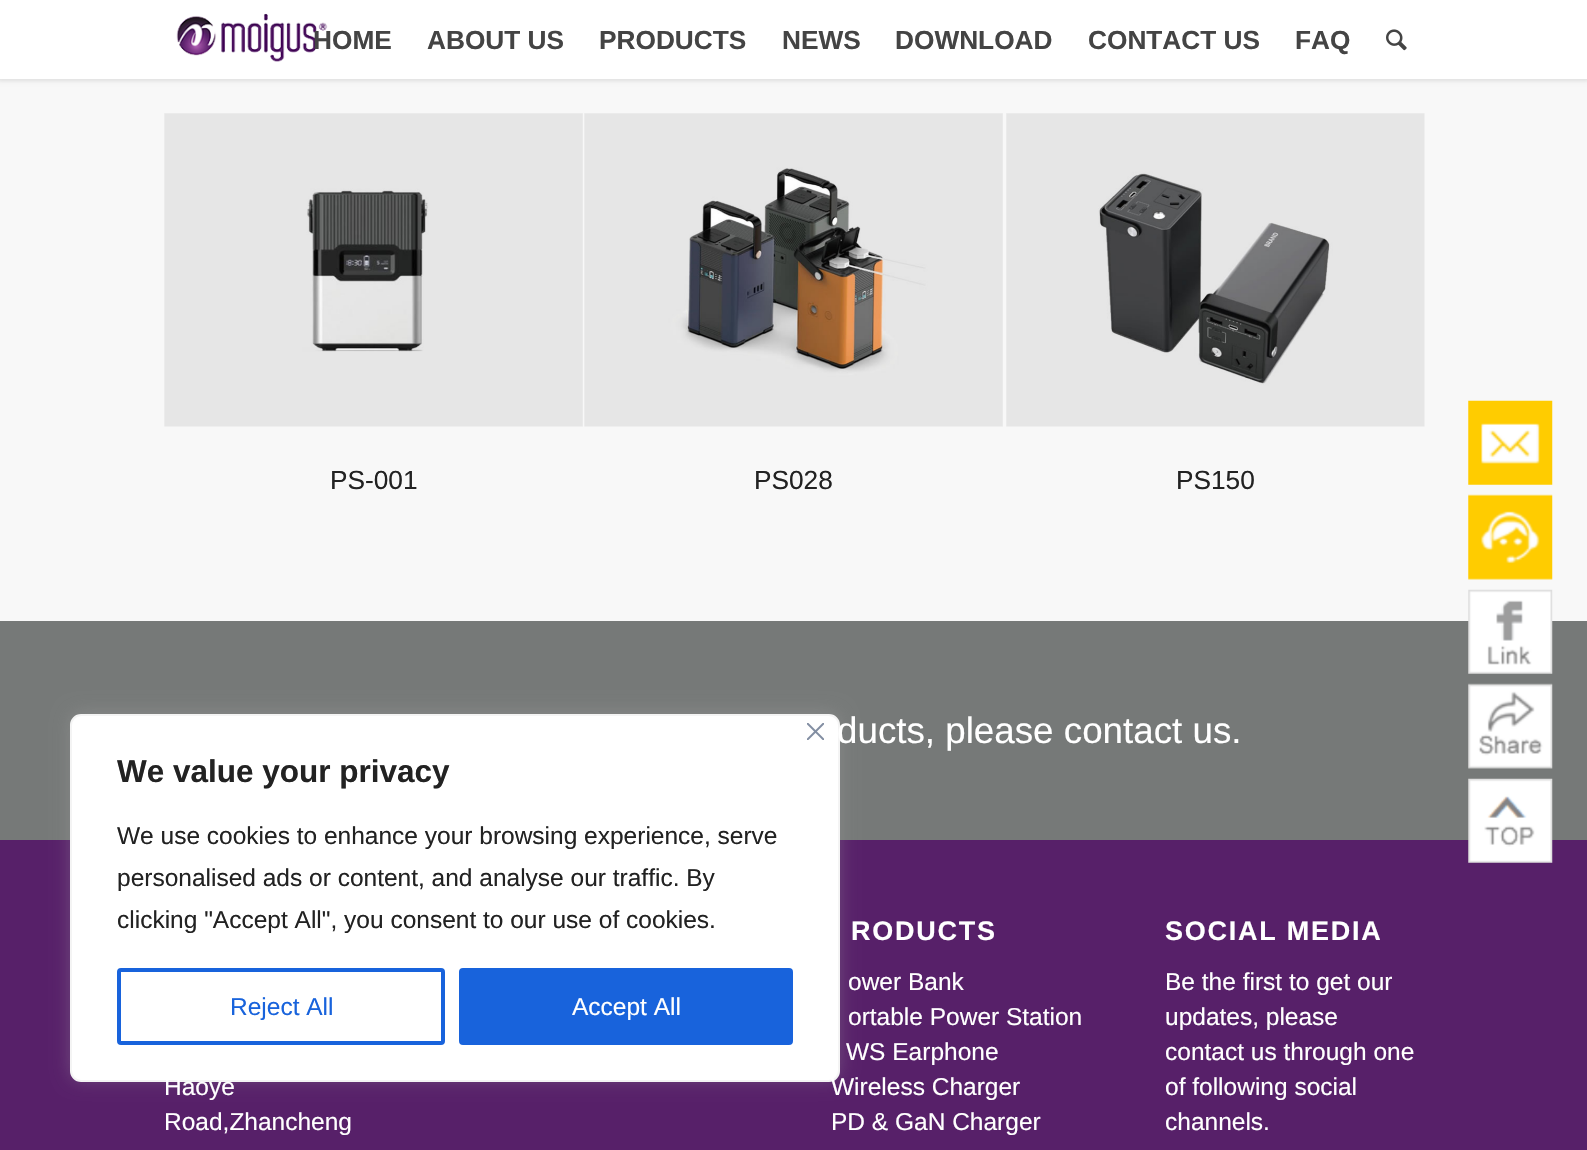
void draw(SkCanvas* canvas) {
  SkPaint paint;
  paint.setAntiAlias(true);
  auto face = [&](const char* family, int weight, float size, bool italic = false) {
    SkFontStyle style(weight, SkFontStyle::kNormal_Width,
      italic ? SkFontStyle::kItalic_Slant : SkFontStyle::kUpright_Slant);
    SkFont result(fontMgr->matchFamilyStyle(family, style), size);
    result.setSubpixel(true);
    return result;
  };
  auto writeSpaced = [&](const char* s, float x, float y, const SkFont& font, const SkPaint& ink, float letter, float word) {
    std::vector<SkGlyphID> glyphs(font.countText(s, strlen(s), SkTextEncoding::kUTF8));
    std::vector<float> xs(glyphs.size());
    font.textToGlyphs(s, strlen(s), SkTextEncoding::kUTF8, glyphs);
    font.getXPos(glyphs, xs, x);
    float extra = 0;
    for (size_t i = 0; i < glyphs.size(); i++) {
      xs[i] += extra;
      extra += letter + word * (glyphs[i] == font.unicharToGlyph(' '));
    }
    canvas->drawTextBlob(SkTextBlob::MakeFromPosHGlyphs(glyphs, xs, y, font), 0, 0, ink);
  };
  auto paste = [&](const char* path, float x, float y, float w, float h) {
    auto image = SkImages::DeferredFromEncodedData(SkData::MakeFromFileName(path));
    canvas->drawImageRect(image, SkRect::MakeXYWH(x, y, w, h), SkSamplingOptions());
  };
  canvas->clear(0xfff8f8f8);
  paint.setColor(0x1a000000);
  paint.setMaskFilter(SkMaskFilter::MakeBlur(kNormal_SkBlurStyle, 2));
  canvas->drawRect(SkRect::MakeXYWH(-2, -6, 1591, 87), paint);
  paint.setMaskFilter(nullptr);
  paint.setColor(0xffffffff);
  canvas->drawRect(SkRect::MakeXYWH(0, 0, 1587, 79), paint);
  paste("img/1.png", 176, 13, 152, 49);
  paste("img/2.png", 1386, 29, 21, 22);
  paste("img/3.png", 164, 113, 419, 314);
  paste("img/4.png", 584, 113, 419, 314);
  paste("img/5.png", 1006, 113, 419, 314);
  paint.setColor(0xff767978);
  canvas->drawRect(SkRect::MakeXYWH(0, 621, 1587, 219), paint);
  paste("img/6.png", 1468, 400, 85, 85);
  paste("img/7.png", 1468, 494, 85, 86);
  paste("img/8.png", 1468, 589, 85, 85);
  paste("img/9.png", 1468, 683, 85, 86);
  paint.setColor(0xff572069);
  canvas->drawRect(SkRect::MakeXYWH(0, 840, 1587, 310), paint);
  paste("img/10.png", 1468, 778, 85, 85);
  paint.setColor(0x4dacabab);
  paint.setMaskFilter(SkMaskFilter::MakeBlur(kNormal_SkBlurStyle, 9));
  canvas->drawRoundRect(SkRect::MakeXYWH(70, 712, 770, 368), 11, 11, paint);
  paint.setMaskFilter(nullptr);
  paint.setColor(0xffffffff);
  canvas->drawRoundRect(SkRect::MakeXYWH(71, 715, 768, 366), 10, 10, paint);
  paint.setStroke(true);
  paint.setStrokeWidth(2);
  paint.setColor(0xfff4f4f4);
  canvas->drawRoundRect(SkRect::MakeXYWH(71, 715, 768, 366), 10, 10, paint);
  paste("img/11.png", 807, 723, 17, 17);
  paint.setStrokeWidth(4);
  paint.setColor(0xff1863dc);
  canvas->drawRoundRect(SkRect::MakeXYWH(119, 970, 324, 73), 2, 2, paint);
  paint.setStroke(false);
  canvas->drawRoundRect(SkRect::MakeXYWH(461, 970, 330, 73), 2, 2, paint);
  paint.setStroke(true);
  canvas->drawRoundRect(SkRect::MakeXYWH(461, 970, 330, 73), 2, 2, paint);
  auto f0 = face("Liberation Sans", 700, 26.25f);
  paint.setStroke(false);
  paint.setColor(0xff444444);
  {
    const struct { const char* s; float x, y; } items[] = {
      {"HOME", 313, 49},
      {"ABOUT US", 427, 49},
      {"PRODUCTS", 599, 49},
      {"NEWS", 782, 49},
      {"DOWNLOAD", 895, 49},
      {"CONTACT US", 1088, 49},
      {"FAQ", 1295, 49},
    };
    for (auto [s, x, y] : items) {
      canvas->drawString(s, x, y, f0, paint);
    }
  }
  auto f1 = face("Liberation Sans", 400, 26.25f);
  paint.setColor(0xff222222);
  {
    const struct { const char* s; float x, y; } items[] = {
      {"PS-001", 330, 489},
      {"PS028", 754, 489},
      {"PS150", 1176, 489},
    };
    for (auto [s, x, y] : items) {
      canvas->drawString(s, x, y, f1, paint);
    }
  }
  auto f2 = face("Liberation Sans", 400, 36.75f);
  paint.setColor(0xffffffff);
  canvas->drawString("ducts, please contact us.", 837, 743, f2, paint);
  auto f3 = face("Liberation Sans", 700, 31.5f);
  paint.setColor(0xff222222);
  canvas->drawString("We value your privacy", 117, 782, f3, paint);
  auto f4 = face("Liberation Sans", 400, 24.5f);
  {
    const struct { const char* s; float x, y; } items[] = {
      {"We use cookies to enhance your browsing experience, serve", 117, 844},
      {"personalised ads or content, and analyse our traffic. By", 117, 886},
      {"clicking \"Accept All\", you consent to our use of cookies.", 117, 928},
    };
    for (auto [s, x, y] : items) {
      canvas->drawString(s, x, y, f4, paint);
    }
  }
  paint.setColor(0xff1863dc);
  canvas->drawString("Reject All", 230, 1015, f4, paint);
  paint.setColor(0xffffffff);
  {
    const struct { const char* s; float x, y; } items[] = {
      {"Accept All", 572, 1015},
      {"Haoye", 164, 1095},
      {"Road,Zhancheng", 164, 1130},
    };
    for (auto [s, x, y] : items) {
      canvas->drawString(s, x, y, f4, paint);
    }
  }
  auto f5 = face("Liberation Sans", 700, 27);
  writeSpaced("RODUCTS", 851, 940, f5, paint, 1.75f, 0);
  {
    const struct { const char* s; float x, y; } items[] = {
      {"ower Bank", 848, 990},
      {"ortable Power Station", 848, 1025},
      {"WS Earphone", 846, 1060},
      {"Wireless Charger", 831, 1095},
      {"PD & GaN Charger", 831, 1130},
    };
    for (auto [s, x, y] : items) {
      canvas->drawString(s, x, y, f4, paint);
    }
  }
  writeSpaced("SOCIAL MEDIA", 1165, 940, f5, paint, 1.75f, 0);
  {
    const struct { const char* s; float x, y; } items[] = {
      {"Be the first to get our", 1165, 990},
      {"updates, please", 1165, 1025},
      {"contact us through one", 1165, 1060},
      {"of following social", 1165, 1095},
      {"channels.", 1165, 1130},
    };
    for (auto [s, x, y] : items) {
      canvas->drawString(s, x, y, f4, paint);
    }
  }
}
